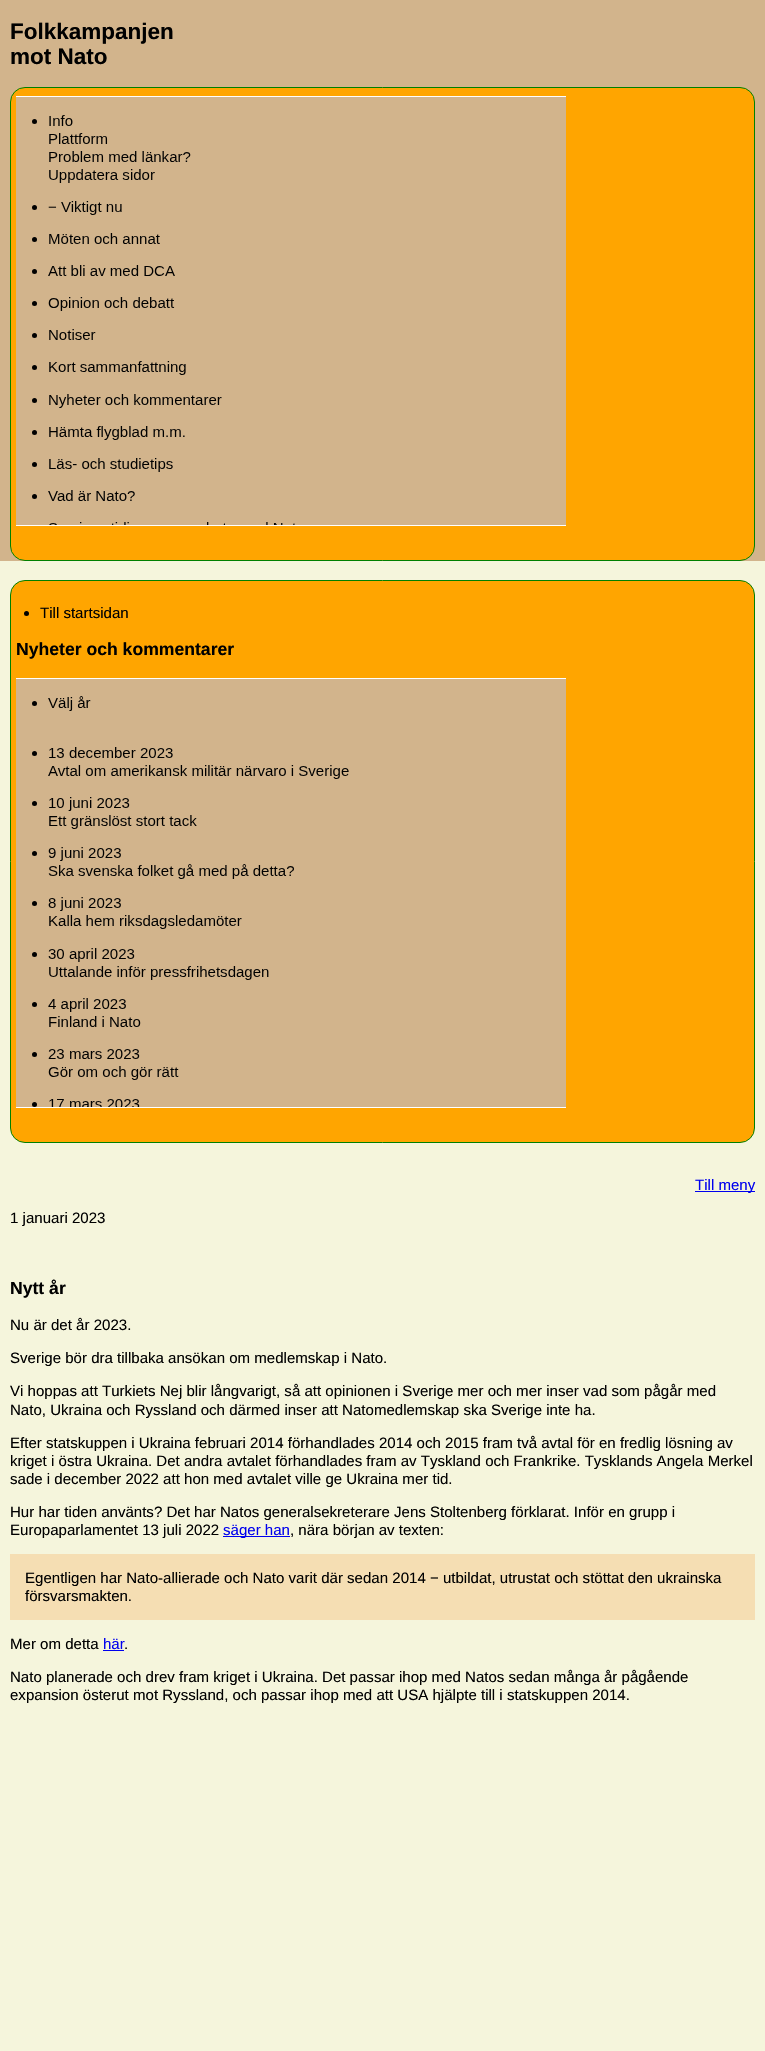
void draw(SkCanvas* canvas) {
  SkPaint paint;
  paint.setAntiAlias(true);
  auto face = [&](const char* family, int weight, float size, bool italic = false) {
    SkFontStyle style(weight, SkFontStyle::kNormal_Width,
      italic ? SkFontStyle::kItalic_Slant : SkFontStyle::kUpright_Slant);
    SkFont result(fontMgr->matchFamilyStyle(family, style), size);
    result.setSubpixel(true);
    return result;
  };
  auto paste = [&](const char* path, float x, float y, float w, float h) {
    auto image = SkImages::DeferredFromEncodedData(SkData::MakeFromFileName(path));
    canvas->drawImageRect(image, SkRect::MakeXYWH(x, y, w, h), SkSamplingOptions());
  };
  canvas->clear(0xffd2b48c);
  paint.setColor(0xffffa500);
  canvas->drawRoundRect(SkRect::MakeXYWH(10.5f, 87.5f, 744, 473), 14.5f, 14.5f, paint);
  paint.setStroke(true);
  paint.setStrokeWidth(1);
  paint.setColor(0xff008000);
  canvas->drawRoundRect(SkRect::MakeXYWH(10.5f, 87.5f, 744, 473), 14.5f, 14.5f, paint);
  paint.setStroke(false);
  paint.setColor(0xffffffff);
  canvas->drawRect(SkRect::MakeXYWH(16, 96, 550, 1), paint);
  paint.setColor(0xffd2b48c);
  canvas->drawRect(SkRect::MakeXYWH(16, 97, 550, 428), paint);
  paste("img/1.png", 32, 115, 263, 410);
  paint.setColor(0xffffffff);
  canvas->drawRect(SkRect::MakeXYWH(16, 525, 550, 1), paint);
  paint.setColor(0xfff5f5dc);
  canvas->drawRect(SkRect::MakeXYWH(0, 561, 765, 1490), paint);
  paint.setColor(0xffffa500);
  canvas->drawRoundRect(SkRect::MakeXYWH(10.5f, 580.5f, 744, 562), 14.5f, 14.5f, paint);
  paint.setStroke(true);
  paint.setColor(0xff008000);
  canvas->drawRoundRect(SkRect::MakeXYWH(10.5f, 580.5f, 744, 562), 14.5f, 14.5f, paint);
  paint.setStroke(false);
  paint.setColor(0xff000000);
  canvas->drawCircle(26.5f, 613.5f, 2.5f, paint);
  paint.setColor(0xffffffff);
  canvas->drawRect(SkRect::MakeXYWH(16, 678, 550, 1), paint);
  paint.setColor(0xffd2b48c);
  canvas->drawRect(SkRect::MakeXYWH(16, 679, 550, 428), paint);
  paste("img/2.png", 32, 696, 317, 411);
  {
    const struct { float x, y, w, h; SkColor color; } items[] = {
      {16, 1107, 550, 1, 0xffffffff},
      {695, 1191, 60, 1, 0xff0000ee},
      {223, 1536, 67, 1, 0xff0000ee},
      {10, 1554, 745, 66, 0xfff5deb3},
      {103, 1650, 21, 1, 0xff0000ee},
    };
    for (auto [x, y, w, h, color] : items) {
      paint.setColor(color);
      canvas->drawRect(SkRect::MakeXYWH(x, y, w, h), paint);
    }
  }
  auto f0 = face("Liberation Sans", 700, 22.5f);
  paint.setColor(0xff000000);
  canvas->drawString("Folkkampanjen", 10, 39, f0, paint);
  canvas->drawString("mot Nato", 10, 64, f0, paint);
  auto f1 = face("Liberation Sans", 400, 15.05f);
  canvas->drawString("Till startsidan", 40, 618, f1, paint);
  auto f2 = face("Liberation Sans", 700, 17.6f);
  canvas->drawString("Nyheter och kommentarer", 16, 655, f2, paint);
  paint.setColor(0xff0000ee);
  canvas->drawString("Till meny", 695, 1190, f1, paint);
  paint.setColor(0xff000000);
  canvas->drawString("1 januari 2023", 10, 1223, f1, paint);
  canvas->drawString("Nytt år", 10, 1294, f2, paint);
  {
    const struct { const char* s; float x, y; } items[] = {
      {"Nu är det år 2023.", 10, 1330},
      {"Sverige bör dra tillbaka ansökan om medlemskap i Nato.", 10, 1363},
      {"Vi hoppas att Turkiets Nej blir långvarigt, så att opinionen i Sverige mer och mer inser vad som pågår med", 10, 1396},
      {"Nato, Ukraina och Ryssland och därmed inser att Natomedlemskap ska Sverige inte ha.", 10, 1415},
      {"Efter statskuppen i Ukraina februari 2014 förhandlades 2014 och 2015 fram två avtal för en fredlig lösning av", 10, 1448},
      {"kriget i östra Ukraina. Det andra avtalet förhandlades fram av Tyskland och Frankrike. Tysklands Angela Merkel", 10, 1466},
      {"sade i december 2022 att hon med avtalet ville ge Ukraina mer tid.", 10, 1484},
      {"Hur har tiden använts? Det har Natos generalsekreterare Jens Stoltenberg förklarat. Inför en grupp i", 10, 1517},
      {"Europaparlamentet 13 juli 2022", 10, 1535},
    };
    for (auto [s, x, y] : items) {
      canvas->drawString(s, x, y, f1, paint);
    }
  }
  paint.setColor(0xff0000ee);
  canvas->drawString("säger han", 223, 1535, f1, paint);
  paint.setColor(0xff000000);
  {
    const struct { const char* s; float x, y; } items[] = {
      {", nära början av texten:", 290, 1535},
      {"Egentligen har Nato-allierade och Nato varit där sedan 2014 − utbildat, utrustat och stöttat den ukrainska", 25, 1583},
      {"försvarsmakten.", 25, 1601},
      {"Mer om detta", 10, 1649},
    };
    for (auto [s, x, y] : items) {
      canvas->drawString(s, x, y, f1, paint);
    }
  }
  paint.setColor(0xff0000ee);
  canvas->drawString("här", 103, 1649, f1, paint);
  paint.setColor(0xff000000);
  {
    const struct { const char* s; float x, y; } items[] = {
      {".", 124, 1649},
      {"Nato planerade och drev fram kriget i Ukraina. Det passar ihop med Natos sedan många år pågående", 10, 1682},
      {"expansion österut mot Ryssland, och passar ihop med att USA hjälpte till i statskuppen 2014.", 10, 1700},
    };
    for (auto [s, x, y] : items) {
      canvas->drawString(s, x, y, f1, paint);
    }
  }
}
